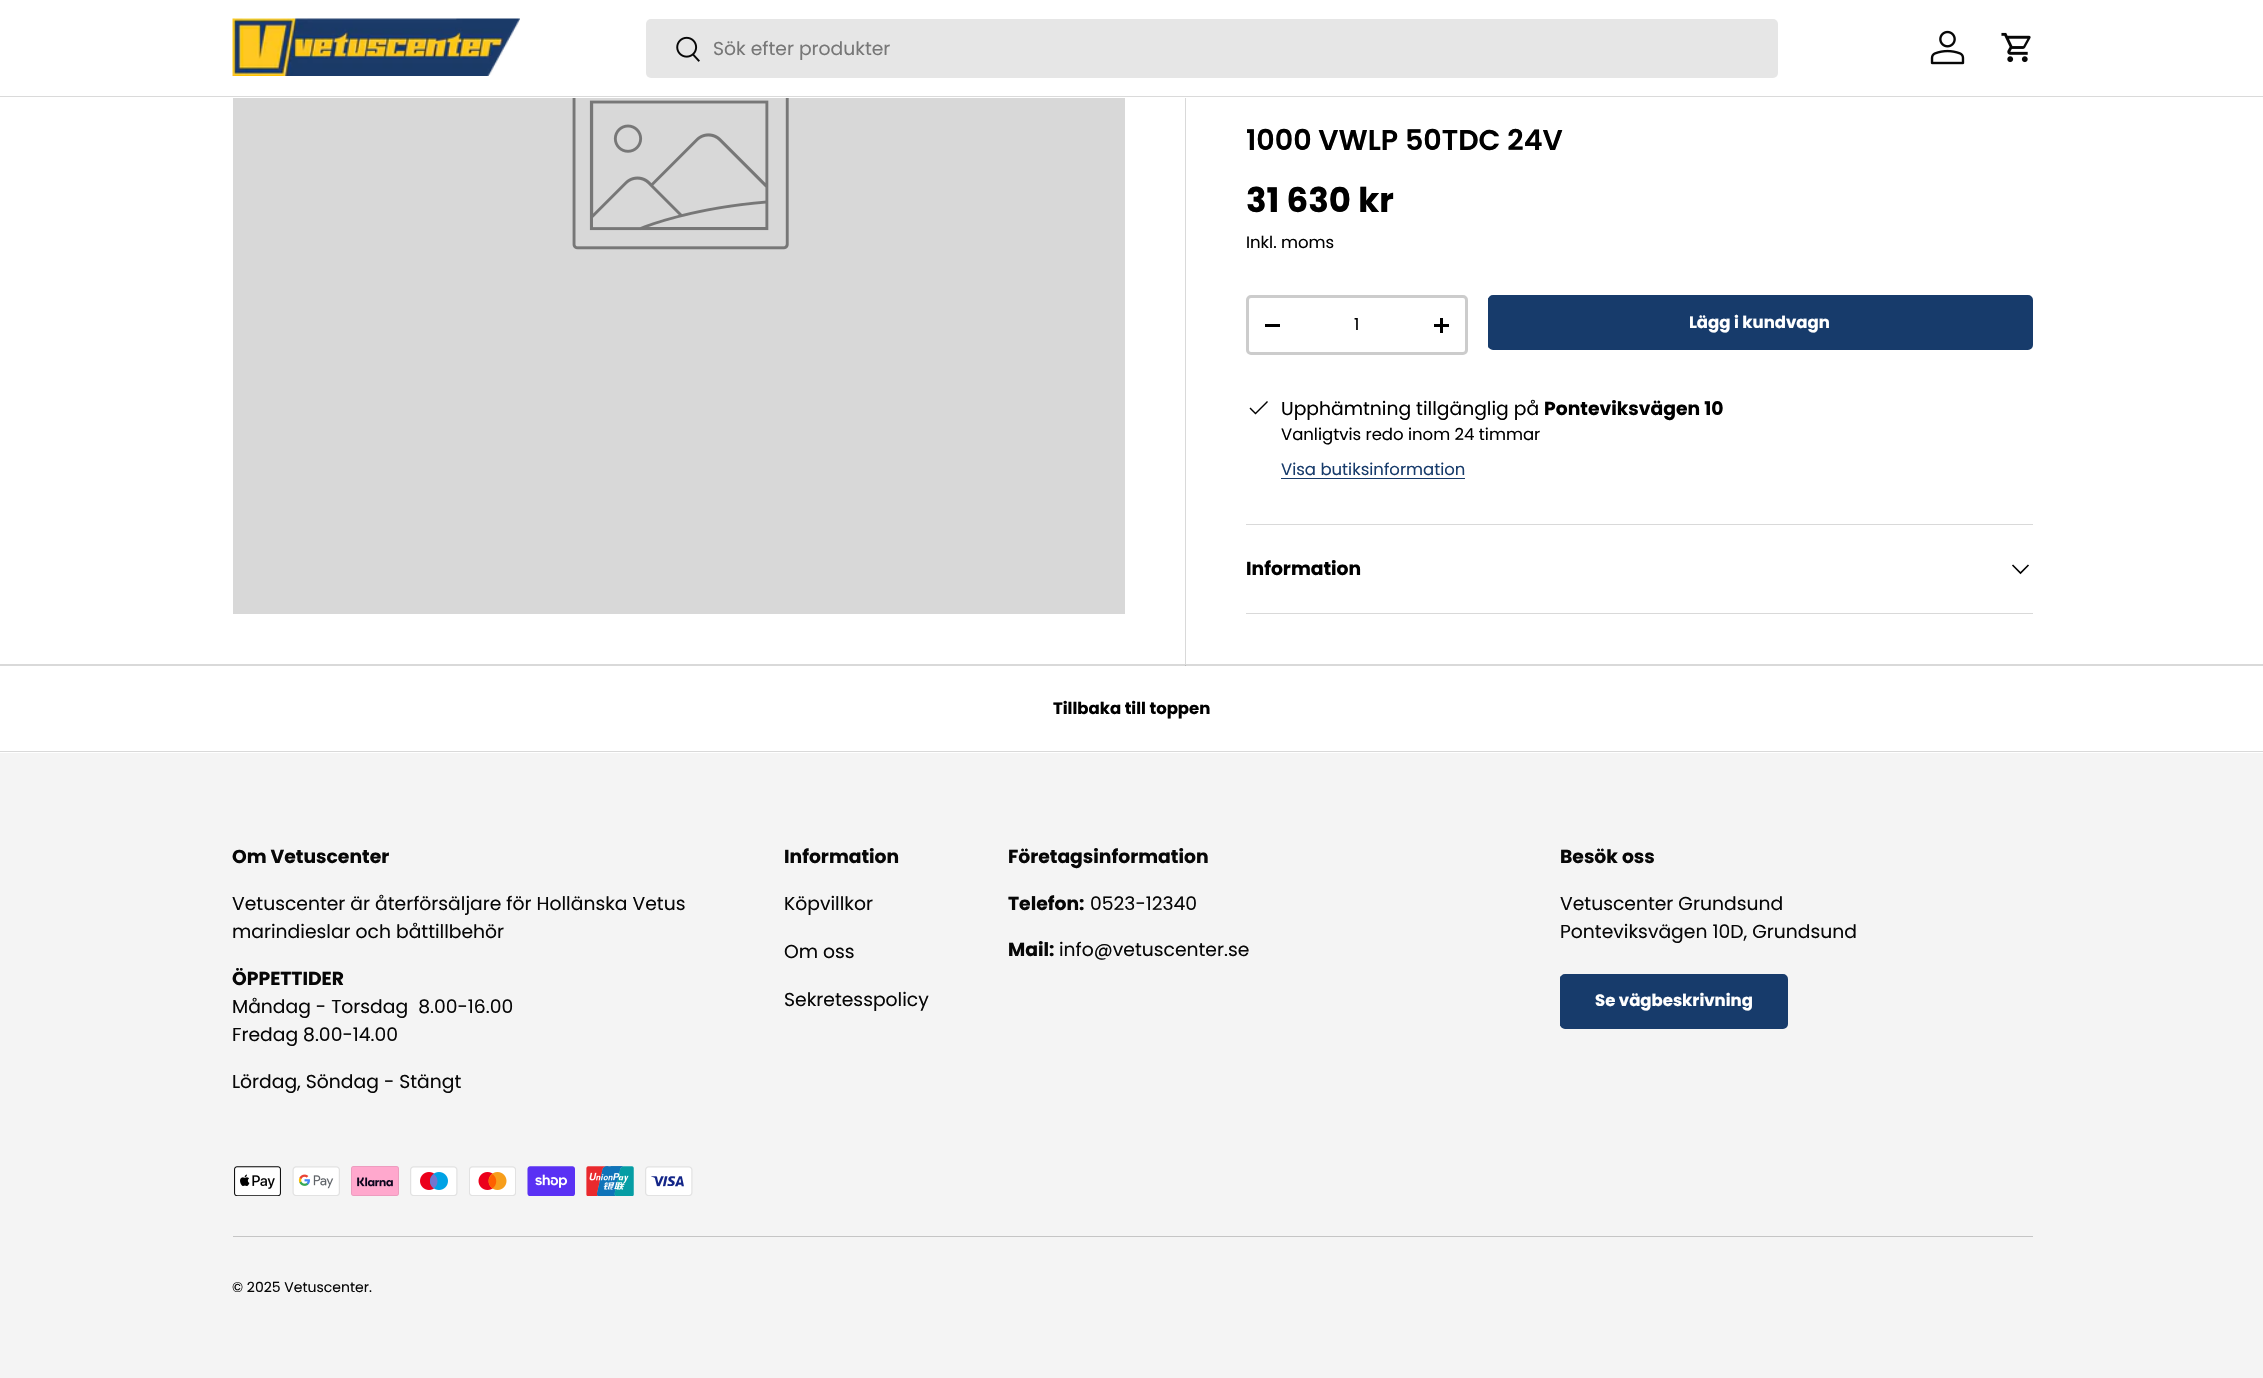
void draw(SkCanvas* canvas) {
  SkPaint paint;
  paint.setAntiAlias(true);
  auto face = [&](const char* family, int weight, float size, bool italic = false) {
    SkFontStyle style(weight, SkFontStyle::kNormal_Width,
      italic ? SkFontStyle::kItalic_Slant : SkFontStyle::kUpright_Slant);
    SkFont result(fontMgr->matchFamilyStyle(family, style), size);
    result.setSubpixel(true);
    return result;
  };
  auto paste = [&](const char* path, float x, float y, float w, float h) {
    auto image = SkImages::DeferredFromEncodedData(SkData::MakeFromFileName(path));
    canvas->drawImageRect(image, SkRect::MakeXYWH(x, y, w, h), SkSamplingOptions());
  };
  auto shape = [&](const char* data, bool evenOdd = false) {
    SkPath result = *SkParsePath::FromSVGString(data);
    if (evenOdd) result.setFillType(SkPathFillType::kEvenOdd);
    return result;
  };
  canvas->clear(0xffffffff);
  paint.setColor(0xffd9d9d9);
  canvas->drawRect(SkRect::MakeXYWH(0, 664, 2263, 2), paint);
  paint.setColor(0xffdadada);
  canvas->drawRect(SkRect::MakeXYWH(0, 96, 2263, 1), paint);
  paste("img/1.png", 232, 18, 288, 58);
  paint.setColor(0xffe6e6e6);
  canvas->drawRoundRect(SkRect::MakeXYWH(646, 19, 1132, 59), 5, 5, paint);
  paste("img/2.png", 676, 36, 24, 26);
  paste("img/3.png", 1930, 30, 35, 35);
  paste("img/4.png", 2001, 32, 30, 31);
  paint.setColor(0xffd8d8d8);
  canvas->drawRect(SkRect::MakeXYWH(233, 98, 892, 516), paint);
  paste("img/5.png", 572, 98, 217, 152);
  paint.setColor(0xffd9d9d9);
  canvas->drawRect(SkRect::MakeXYWH(1185, 98, 1, 568), paint);
  paint.setColor(0xffb8b8b8);
  canvas->drawRect(SkRect::MakeXYWH(1185, 665, 1, 1), paint);
  paint.setStroke(true);
  paint.setStrokeWidth(3);
  paint.setColor(0xffcccccc);
  canvas->drawRoundRect(SkRect::MakeXYWH(1247.5f, 296.5f, 219, 57), 3.5f, 3.5f, paint);
  paint.setStroke(false);
  {
    const struct { float x, y, w, h; SkColor color; } items[] = {
      {1265, 324, 15, 3, 0xff000000},
      {1434, 324, 15, 3, 0xff000000},
      {1440, 318, 3, 15, 0xff000000},
    };
    for (auto [x, y, w, h, color] : items) {
      paint.setColor(color);
      canvas->drawRect(SkRect::MakeXYWH(x, y, w, h), paint);
    }
  }
  canvas->save();
  canvas->clipPath(shape("M1493 295H2028C2031 295 2033 297 2033 300V345C2033 348 2031 350 2028 350H1493C1490 350 1488 348 1488 345V300C1488 297 1490 295 1493 295Z"), true);
  {
    const SkColor colors[] = {0xff3f5f8c, 0xff173b6b, 0xff173b6b};
    const float stops[] = {0.6f, 0.6f, 1};
    const SkPoint ends[] = {{452, 131}, {1988, 514}};
    paint.setShader(SkGradientShader::MakeLinear(ends, colors, stops, 3, SkTileMode::kClamp));
    paint.setAlpha(255);
  }
  canvas->drawRect(SkRect::MakeXYWH(1488, 298, 542, 50), paint);
  canvas->restore();
  paint.setStroke(true);
  paint.setShader(nullptr);
  paint.setColor(0xff173b6b);
  canvas->drawRoundRect(SkRect::MakeXYWH(1489.5f, 296.5f, 542, 52), 3.5f, 3.5f, paint);
  paint.setStroke(false);
  paint.setColor(0xff000000);
  canvas->drawPath(shape("M1267 401L1268 402L1255.5 414.5L1249.5 408.5L1250.5 407.5L1255.5 412.5Z"), paint);
  {
    const struct { float x, y, w, h; SkColor color; } items[] = {
      {1281, 478, 184, 1, 0xff173b6b},
      {1246, 524, 787, 1, 0xffd9d9d9},
      {1246, 613, 787, 1, 0xffd9d9d9},
    };
    for (auto [x, y, w, h, color] : items) {
      paint.setColor(color);
      canvas->drawRect(SkRect::MakeXYWH(x, y, w, h), paint);
    }
  }
  paint.setStroke(true);
  paint.setStrokeWidth(1.6f);
  paint.setColor(0xff000000);
  canvas->drawPath(shape("M2028.5 565L2020.5 573L2012.5 565"), paint);
  paint.setStroke(false);
  paint.setColor(0xffd9d9d9);
  canvas->drawRect(SkRect::MakeXYWH(0, 751, 2263, 1), paint);
  paint.setColor(0xfff4f4f4);
  canvas->drawRect(SkRect::MakeXYWH(0, 753, 2263, 625), paint);
  canvas->save();
  canvas->clipPath(shape("M1565 974H1783C1786 974 1788 976 1788 979V1024C1788 1027 1786 1029 1783 1029H1565C1562 1029 1560 1027 1560 1024V979C1560 976 1562 974 1565 974Z"), true);
  {
    const SkColor colors[] = {0xff3f5f8c, 0xff173b6b, 0xff173b6b};
    const float stops[] = {0.6f, 0.6f, 1};
    const SkPoint ends[] = {{1131, 921}, {1771, 1081}};
    paint.setShader(SkGradientShader::MakeLinear(ends, colors, stops, 3, SkTileMode::kClamp));
    paint.setAlpha(255);
  }
  canvas->drawRect(SkRect::MakeXYWH(1560, 976, 225, 50), paint);
  canvas->restore();
  paint.setStroke(true);
  paint.setStrokeWidth(3);
  paint.setShader(nullptr);
  paint.setColor(0xff173b6b);
  canvas->drawRoundRect(SkRect::MakeXYWH(1561.5f, 975.5f, 225, 52), 3.5f, 3.5f, paint);
  paste("img/6.png", 234, 1166, 47, 30);
  paste("img/7.png", 292, 1166, 48, 30);
  paste("img/8.png", 351, 1166, 48, 30);
  paste("img/9.png", 410, 1166, 48, 30);
  paste("img/10.png", 469, 1166, 47, 30);
  paste("img/11.png", 527, 1166, 48, 30);
  paste("img/12.png", 586, 1166, 48, 30);
  paste("img/13.png", 645, 1166, 48, 30);
  paint.setStroke(false);
  paint.setColor(0xffc5c5c5);
  canvas->drawRect(SkRect::MakeXYWH(233, 1236, 1800, 1), paint);
  auto f0 = face("Poppins", 400, 18.75f);
  paint.setColor(0xff777777);
  canvas->drawString("Sök efter produkter", 713, 55, f0, paint);
  auto f1 = face("Poppins", 600, 28.5f);
  paint.setColor(0xff000000);
  canvas->drawString("1000 VWLP 50TDC 24V", 1246, 150, f1, paint);
  auto f2 = face("Poppins", 700, 34);
  canvas->drawString("31 630 kr", 1246, 212, f2, paint);
  auto f3 = face("Poppins", 400, 16.5f);
  canvas->drawString("Inkl. moms", 1246, 248, f3, paint);
  canvas->drawString("1", 1354, 330, f3, paint);
  auto f4 = face("Poppins", 700, 16.5f);
  paint.setColor(0xffffffff);
  canvas->drawString("Lägg i kundvagn", 1689, 328, f4, paint);
  paint.setColor(0xff000000);
  canvas->drawString("Upphämtning tillgänglig på", 1281, 415, f0, paint);
  auto f5 = face("Poppins", 700, 18.75f);
  canvas->drawString("Ponteviksvägen 10", 1544, 415, f5, paint);
  canvas->drawString("Vanligtvis redo inom 24 timmar", 1281, 440, f3, paint);
  paint.setColor(0xff173b6b);
  canvas->drawString("Visa butiksinformation", 1281, 475, f3, paint);
  paint.setColor(0xff000000);
  canvas->drawString("Information", 1246, 575, f5, paint);
  canvas->drawString("Tillbaka till toppen", 1053, 714, f4, paint);
  paint.setColor(0xff070707);
  canvas->drawString("Om Vetuscenter", 232, 863, f5, paint);
  canvas->drawString("Vetuscenter är återförsäljare för Hollänska Vetus", 232, 910, f0, paint);
  canvas->drawString("marindieslar och båttillbehör", 232, 938, f0, paint);
  canvas->drawString("ÖPPETTIDER", 232, 985, f5, paint);
  {
    const struct { const char* s; float x, y; } items[] = {
      {"Måndag - Torsdag  8.00-16.00", 232, 1013},
      {"Fredag 8.00-14.00", 232, 1041},
      {"Lördag, Söndag - Stängt", 232, 1088},
    };
    for (auto [s, x, y] : items) {
      canvas->drawString(s, x, y, f0, paint);
    }
  }
  canvas->drawString("Information", 784, 863, f5, paint);
  {
    const struct { const char* s; float x, y; } items[] = {
      {"Köpvillkor", 784, 910},
      {"Om oss", 784, 958},
      {"Sekretesspolicy", 784, 1006},
    };
    for (auto [s, x, y] : items) {
      canvas->drawString(s, x, y, f0, paint);
    }
  }
  canvas->drawString("Företagsinformation", 1008, 863, f5, paint);
  canvas->drawString("Telefon:", 1008, 910, f5, paint);
  canvas->drawString("0523-12340", 1090, 910, f0, paint);
  canvas->drawString("Mail:", 1008, 956, f5, paint);
  canvas->drawString("info@vetuscenter.se", 1059, 956, f0, paint);
  canvas->drawString("Besök oss", 1560, 863, f5, paint);
  canvas->drawString("Vetuscenter Grundsund", 1560, 910, f0, paint);
  canvas->drawString("Ponteviksvägen 10D, Grundsund", 1560, 938, f0, paint);
  paint.setColor(0xffffffff);
  canvas->drawString("Se vägbeskrivning", 1595, 1006, f4, paint);
  auto f6 = face("Poppins", 400, 14);
  paint.setColor(0xff070707);
  canvas->drawString("© 2025 Vetuscenter.", 232, 1292, f6, paint);
}
